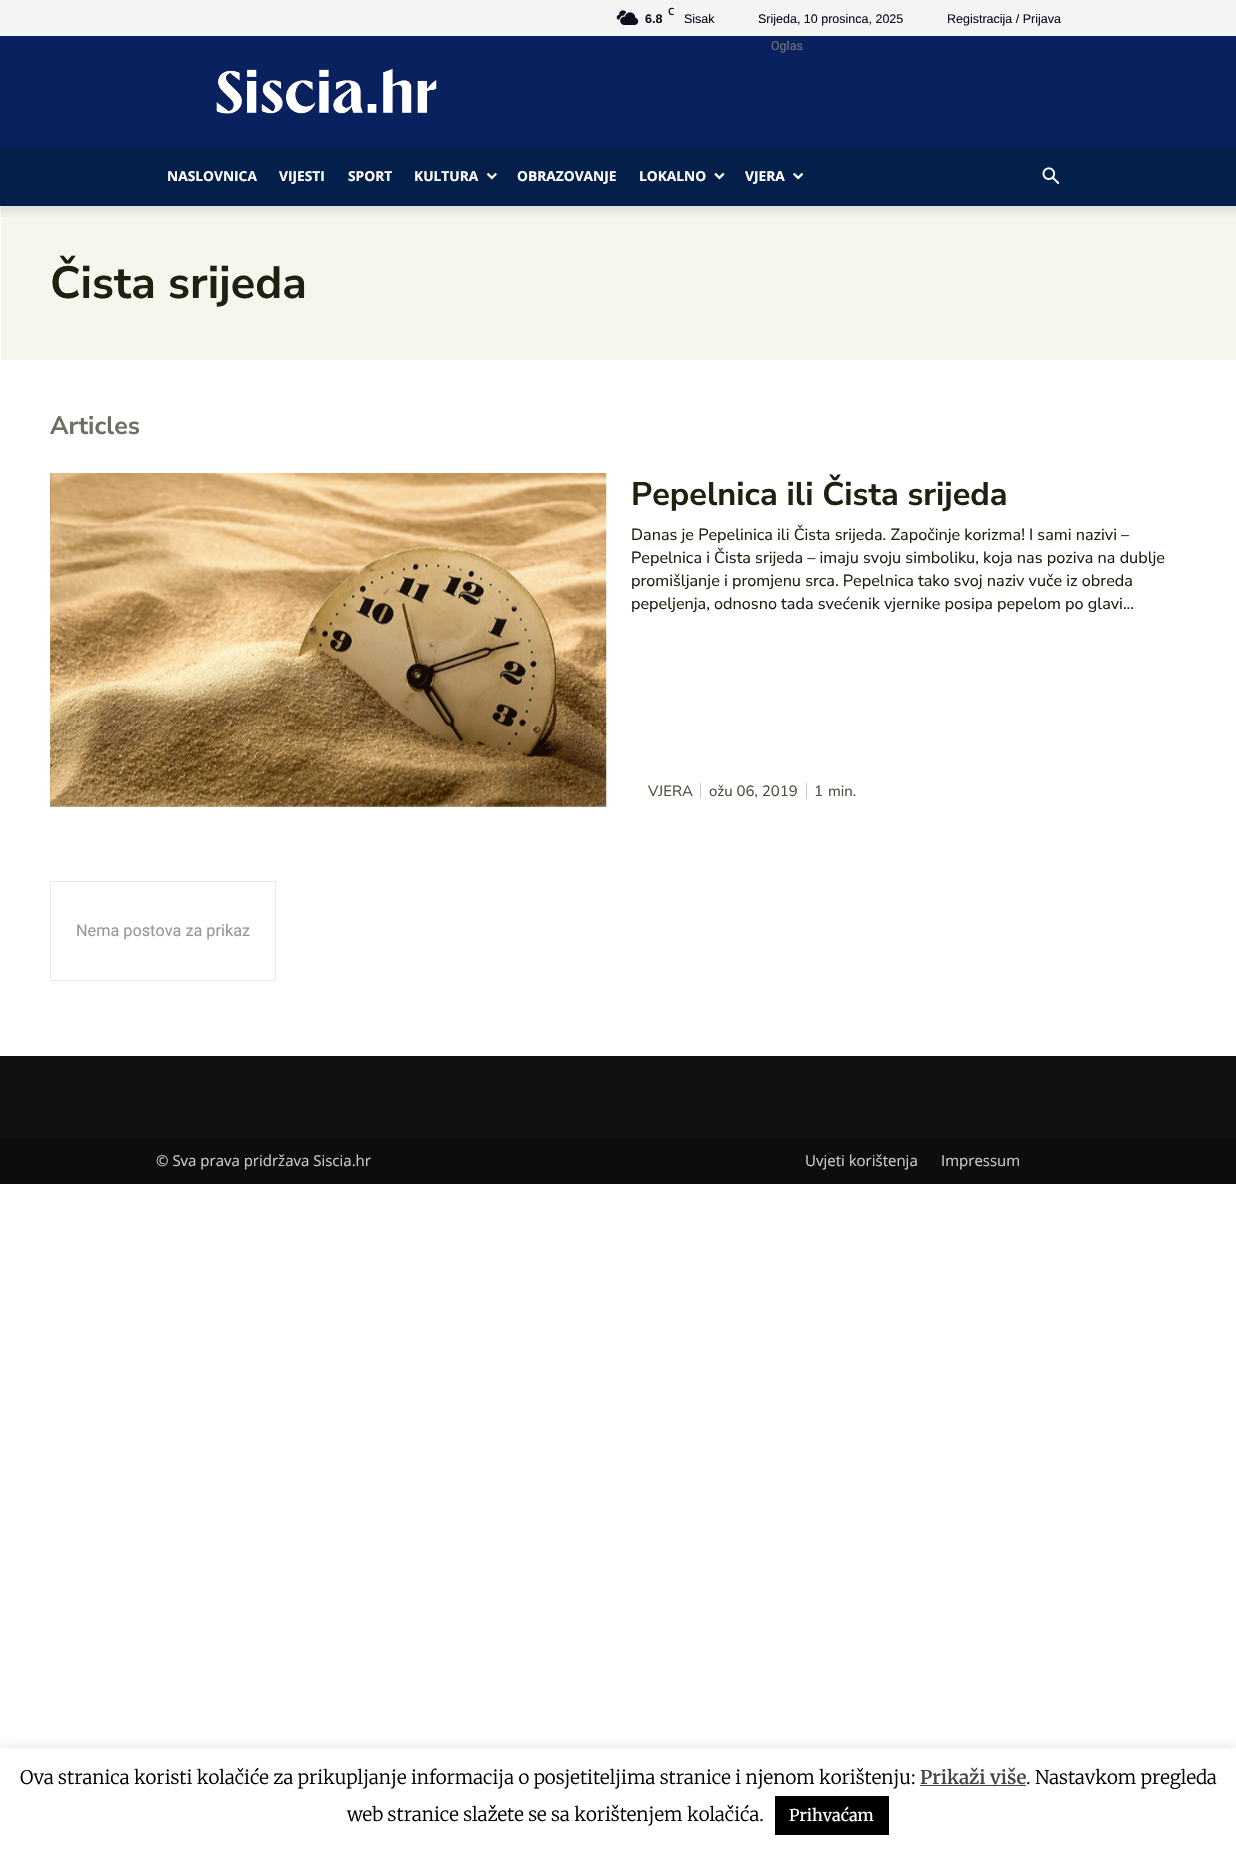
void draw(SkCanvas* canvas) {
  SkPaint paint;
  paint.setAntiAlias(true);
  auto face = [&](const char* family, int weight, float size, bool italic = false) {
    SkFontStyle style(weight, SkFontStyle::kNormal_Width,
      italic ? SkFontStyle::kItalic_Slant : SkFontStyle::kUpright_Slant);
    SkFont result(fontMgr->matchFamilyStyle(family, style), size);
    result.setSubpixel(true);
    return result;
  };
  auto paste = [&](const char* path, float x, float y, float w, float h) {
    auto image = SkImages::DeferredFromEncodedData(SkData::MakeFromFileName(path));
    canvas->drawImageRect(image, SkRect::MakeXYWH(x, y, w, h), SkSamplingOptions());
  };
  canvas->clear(0xffffffff);
  paint.setColor(0xfff4f4f4);
  canvas->drawRect(SkRect::MakeXYWH(0, 0, 1236, 36), paint);
  paste("img/1.png", 616, 10, 23, 15);
  paint.setColor(0xff09225f);
  canvas->drawRect(SkRect::MakeXYWH(0, 36, 1236, 110), paint);
  paste("img/2.png", 216, 68, 221, 46);
  paint.setColor(0xff041f4a);
  canvas->drawRect(SkRect::MakeXYWH(0, 146, 1236, 60), paint);
  paste("img/3.png", 486, 172, 11, 8);
  paste("img/4.png", 714, 172, 11, 8);
  paste("img/5.png", 793, 172, 11, 8);
  paste("img/6.png", 1042, 167, 18, 17);
  paint.setColor(0xfff3f7ee);
  canvas->drawRect(SkRect::MakeXYWH(1, 206, 1235, 154), paint);
  paste("img/7.png", 0, 206, 1236, 11);
  paste("img/8.png", 50, 473, 557, 334);
  paint.setColor(0xffc7c8c3);
  canvas->drawRect(SkRect::MakeXYWH(700, 783, 1, 16), paint);
  canvas->drawRect(SkRect::MakeXYWH(806, 783, 1, 16), paint);
  paint.setStroke(true);
  paint.setStrokeWidth(1);
  paint.setColor(0xffe8e8e8);
  canvas->drawRect(SkRect::MakeXYWH(50.5f, 881.5f, 225, 99), paint);
  paint.setStroke(false);
  paint.setColor(0xff111111);
  canvas->drawRect(SkRect::MakeXYWH(0, 1056, 1236, 83), paint);
  paint.setColor(0xff0d0d0d);
  canvas->drawRect(SkRect::MakeXYWH(0, 1139, 1236, 45), paint);
  canvas->save();
  canvas->clipRect(SkRect::MakeXYWH(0, 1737, 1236, 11));
  paint.setColor(0x4dacabab);
  paint.setMaskFilter(SkMaskFilter::MakeBlur(kNormal_SkBlurStyle, 6));
  canvas->drawRect(SkRect::MakeXYWH(0, 1746, 1236, 103), paint);
  paint.setMaskFilter(nullptr);
  canvas->restore();
  paint.setColor(0xff444444);
  canvas->drawRect(SkRect::MakeXYWH(920, 1785, 106, 1), paint);
  paint.setColor(0xff000000);
  canvas->drawRect(SkRect::MakeXYWH(775, 1796, 114, 39), paint);
  auto f0 = face("Open Sans", 600, 10);
  paint.setColor(0xff0c0d1f);
  canvas->drawString("C", 668, 15, f0, paint);
  auto f1 = face("Liberation Sans", 700, 12.5f);
  canvas->drawString("6.8", 645, 23, f1, paint);
  auto f2 = face("Liberation Sans", 400, 12.5f);
  {
    const struct { const char* s; float x, y; } items[] = {
      {"Sisak", 684, 23},
      {"Srijeda, 10 prosinca, 2025", 758, 23},
      {"Registracija / Prijava", 947, 23},
    };
    for (auto [s, x, y] : items) {
      canvas->drawString(s, x, y, f2, paint);
    }
  }
  auto f3 = face("Roboto", 400, 12.5f);
  paint.setColor(0xff767676);
  canvas->drawString("Oglas", 771, 50, f3, paint);
  auto f4 = face("Open Sans", 700, 13.75f);
  paint.setColor(0xffffffff);
  {
    const struct { const char* s; float x, y; } items[] = {
      {"NASLOVNICA", 167, 181},
      {"VIJESTI", 279, 181},
      {"SPORT", 348, 181},
      {"KULTURA", 414, 181},
      {"OBRAZOVANJE", 517, 181},
      {"LOKALNO", 639, 181},
      {"VJERA", 745, 181},
    };
    for (auto [s, x, y] : items) {
      canvas->drawString(s, x, y, f4, paint);
    }
  }
  auto f5 = face("Nunito Sans", 700, 45);
  paint.setColor(0xff1d2110);
  canvas->drawString("Čista srijeda", 50, 298, f5, paint);
  auto f6 = face("Nunito Sans", 700, 25);
  paint.setColor(0xff6c6f64);
  canvas->drawString("Articles", 50, 434, f6, paint);
  auto f7 = face("Nunito Sans", 700, 32.5f);
  paint.setColor(0xff1d2110);
  canvas->drawString("Pepelnica ili Čista srijeda", 631, 505, f7, paint);
  auto f8 = face("Nunito Sans", 400, 16.25f);
  {
    const struct { const char* s; float x, y; } items[] = {
      {"Danas je Pepelinica ili Čista srijeda. Započinje korizma! I sami nazivi –", 631, 540},
      {"Pepelnica i Čista srijeda – imaju svoju simboliku, koja nas poziva na dublje", 631, 563},
      {"promišljanje i promjenu srca. Pepelnica tako svoj naziv vuče iz obreda", 631, 586},
      {"pepeljenja, odnosno tada svećenik vjernike posipa pepelom po glavi...", 631, 609},
    };
    for (auto [s, x, y] : items) {
      canvas->drawString(s, x, y, f8, paint);
    }
  }
  auto f9 = face("Nunito Sans", 400, 15);
  paint.setColor(0xff4a4d40);
  {
    const struct { const char* s; float x, y; } items[] = {
      {"VJERA", 648, 796},
      {"ožu 06, 2019", 709, 796},
      {"1", 814, 796},
      {"min.", 828, 796},
    };
    for (auto [s, x, y] : items) {
      canvas->drawString(s, x, y, f9, paint);
    }
  }
  auto f10 = face("Roboto", 400, 16.25f);
  paint.setColor(0xff979797);
  canvas->drawString("Nema postova za prikaz", 76, 936, f10, paint);
  auto f11 = face("Open Sans", 400, 15);
  paint.setColor(0xffcccccc);
  {
    const struct { const char* s; float x, y; } items[] = {
      {"© Sva prava pridržava Siscia.hr", 156, 1166},
      {"Uvjeti korištenja", 805, 1166},
      {"Impressum", 941, 1166},
    };
    for (auto [s, x, y] : items) {
      canvas->drawString(s, x, y, f11, paint);
    }
  }
  auto f12 = face("Merriweather", 300, 18.75f);
  paint.setColor(0xff000000);
  canvas->drawString("Ova stranica koristi kolačiće za prikupljanje informacija o posjetiteljima stranice i njenom korištenju:", 20, 1784, f12, paint);
  auto f13 = face("Merriweather", 600, 18.75f);
  paint.setColor(0xff444444);
  canvas->drawString("Prikaži više", 920, 1784, f13, paint);
  paint.setColor(0xff000000);
  canvas->drawString(". Nastavkom pregleda", 1026, 1784, f12, paint);
  canvas->drawString("web stranice slažete se sa korištenjem kolačića.", 347, 1821, f12, paint);
  auto f14 = face("Merriweather", 400, 16.25f);
  paint.setColor(0xffffffff);
  canvas->drawString("Prihvaćam", 789, 1821, f14, paint);
}
